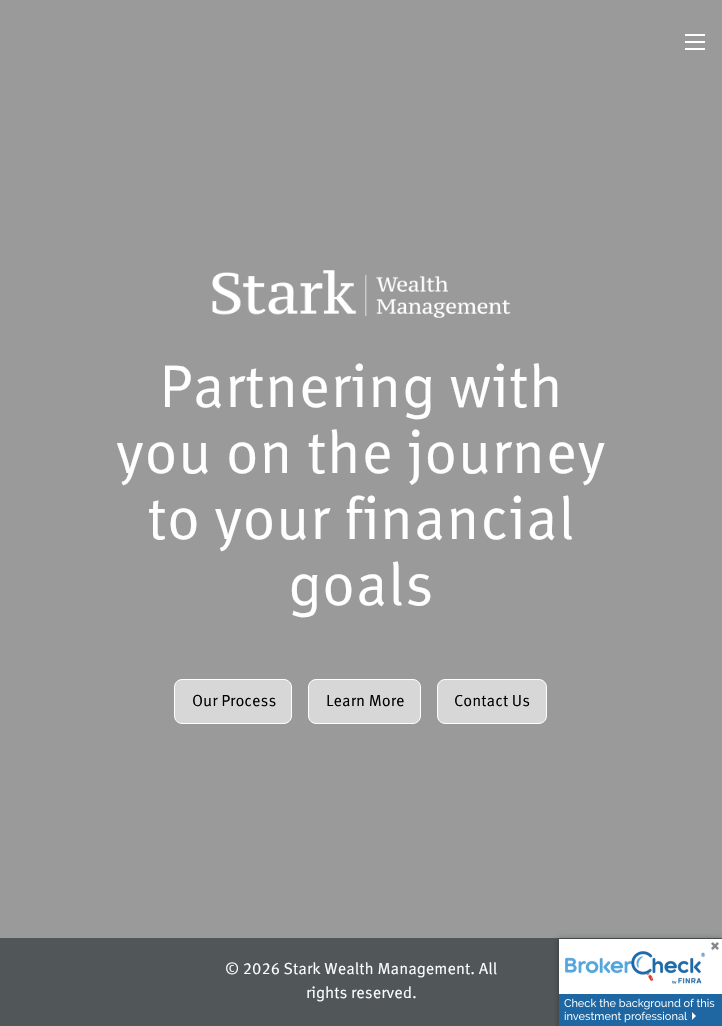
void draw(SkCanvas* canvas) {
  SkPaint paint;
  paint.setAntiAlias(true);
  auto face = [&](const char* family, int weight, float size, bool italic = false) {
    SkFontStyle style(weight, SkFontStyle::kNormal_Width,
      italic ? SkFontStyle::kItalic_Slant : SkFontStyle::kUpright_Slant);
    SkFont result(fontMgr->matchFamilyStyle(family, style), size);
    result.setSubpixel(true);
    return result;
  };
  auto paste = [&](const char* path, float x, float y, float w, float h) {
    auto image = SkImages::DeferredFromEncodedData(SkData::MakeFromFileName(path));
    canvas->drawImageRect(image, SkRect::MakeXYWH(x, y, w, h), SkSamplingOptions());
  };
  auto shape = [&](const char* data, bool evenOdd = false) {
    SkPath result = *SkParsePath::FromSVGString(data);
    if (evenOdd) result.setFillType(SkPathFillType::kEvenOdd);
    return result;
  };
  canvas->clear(0xff9a9a9a);
  {
    const struct { float x, y, w, h; SkColor color; } items[] = {
      {685, 48, 20, 2, 0xffffffff},
      {685, 41, 20, 2, 0xffffffff},
      {685, 34, 20, 2, 0xffffffff},
    };
    for (auto [x, y, w, h, color] : items) {
      paint.setColor(color);
      canvas->drawRect(SkRect::MakeXYWH(x, y, w, h), paint);
    }
  }
  paste("img/1.png", 212, 270, 299, 48);
  paint.setColor(0xffd7d7d7);
  canvas->drawRoundRect(SkRect::MakeXYWH(174.5f, 679.5f, 117, 44), 7.5f, 7.5f, paint);
  paint.setStroke(true);
  paint.setStrokeWidth(1);
  paint.setColor(0xffffffff);
  canvas->drawRoundRect(SkRect::MakeXYWH(174.5f, 679.5f, 117, 44), 7.5f, 7.5f, paint);
  paint.setStroke(false);
  paint.setColor(0xffd7d7d7);
  canvas->drawRoundRect(SkRect::MakeXYWH(308.5f, 679.5f, 112, 44), 7.5f, 7.5f, paint);
  paint.setStroke(true);
  paint.setColor(0xffffffff);
  canvas->drawRoundRect(SkRect::MakeXYWH(308.5f, 679.5f, 112, 44), 7.5f, 7.5f, paint);
  paint.setStroke(false);
  paint.setColor(0xffd7d7d7);
  canvas->drawRoundRect(SkRect::MakeXYWH(437.5f, 679.5f, 109, 44), 7.5f, 7.5f, paint);
  paint.setStroke(true);
  paint.setColor(0xffffffff);
  canvas->drawRoundRect(SkRect::MakeXYWH(437.5f, 679.5f, 109, 44), 7.5f, 7.5f, paint);
  paint.setStroke(false);
  paint.setColor(0xff515759);
  canvas->drawRect(SkRect::MakeXYWH(0, 938, 722, 88), paint);
  paint.setColor(0xffffffff);
  canvas->drawRect(SkRect::MakeXYWH(559, 939, 163, 55), paint);
  canvas->save();
  canvas->clipPath(shape("M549 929H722V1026H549ZM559 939H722V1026H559Z", true), true);
  paint.setColor(0x40000000);
  paint.setMaskFilter(SkMaskFilter::MakeBlur(kNormal_SkBlurStyle, 2.5f));
  canvas->drawRect(SkRect::MakeXYWH(558, 938, 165, 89), paint);
  paint.setMaskFilter(nullptr);
  canvas->restore();
  paste("img/2.png", 559, 942, 163, 84);
  auto f0 = face("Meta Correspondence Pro", 400, 60);
  paint.setColor(0xfffefefe);
  {
    const struct { const char* s; float x, y; } items[] = {
      {"Partnering with", 159, 407},
      {"you on the journey", 116, 473},
      {"to your financial", 147, 539},
      {"goals", 288, 605},
    };
    for (auto [s, x, y] : items) {
      canvas->drawString(s, x, y, f0, paint);
    }
  }
  auto f1 = face("Meta Correspondence Pro", 400, 16);
  paint.setColor(0xff000000);
  {
    const struct { const char* s; float x, y; } items[] = {
      {"Our Process", 192, 706},
      {"Learn More", 326, 706},
      {"Contact Us", 454, 706},
    };
    for (auto [s, x, y] : items) {
      canvas->drawString(s, x, y, f1, paint);
    }
  }
  paint.setColor(0xfffefefe);
  canvas->drawString("© 2026 Stark Wealth Management. All", 225, 974, f1, paint);
  canvas->drawString("rights reserved.", 306, 998, f1, paint);
}
